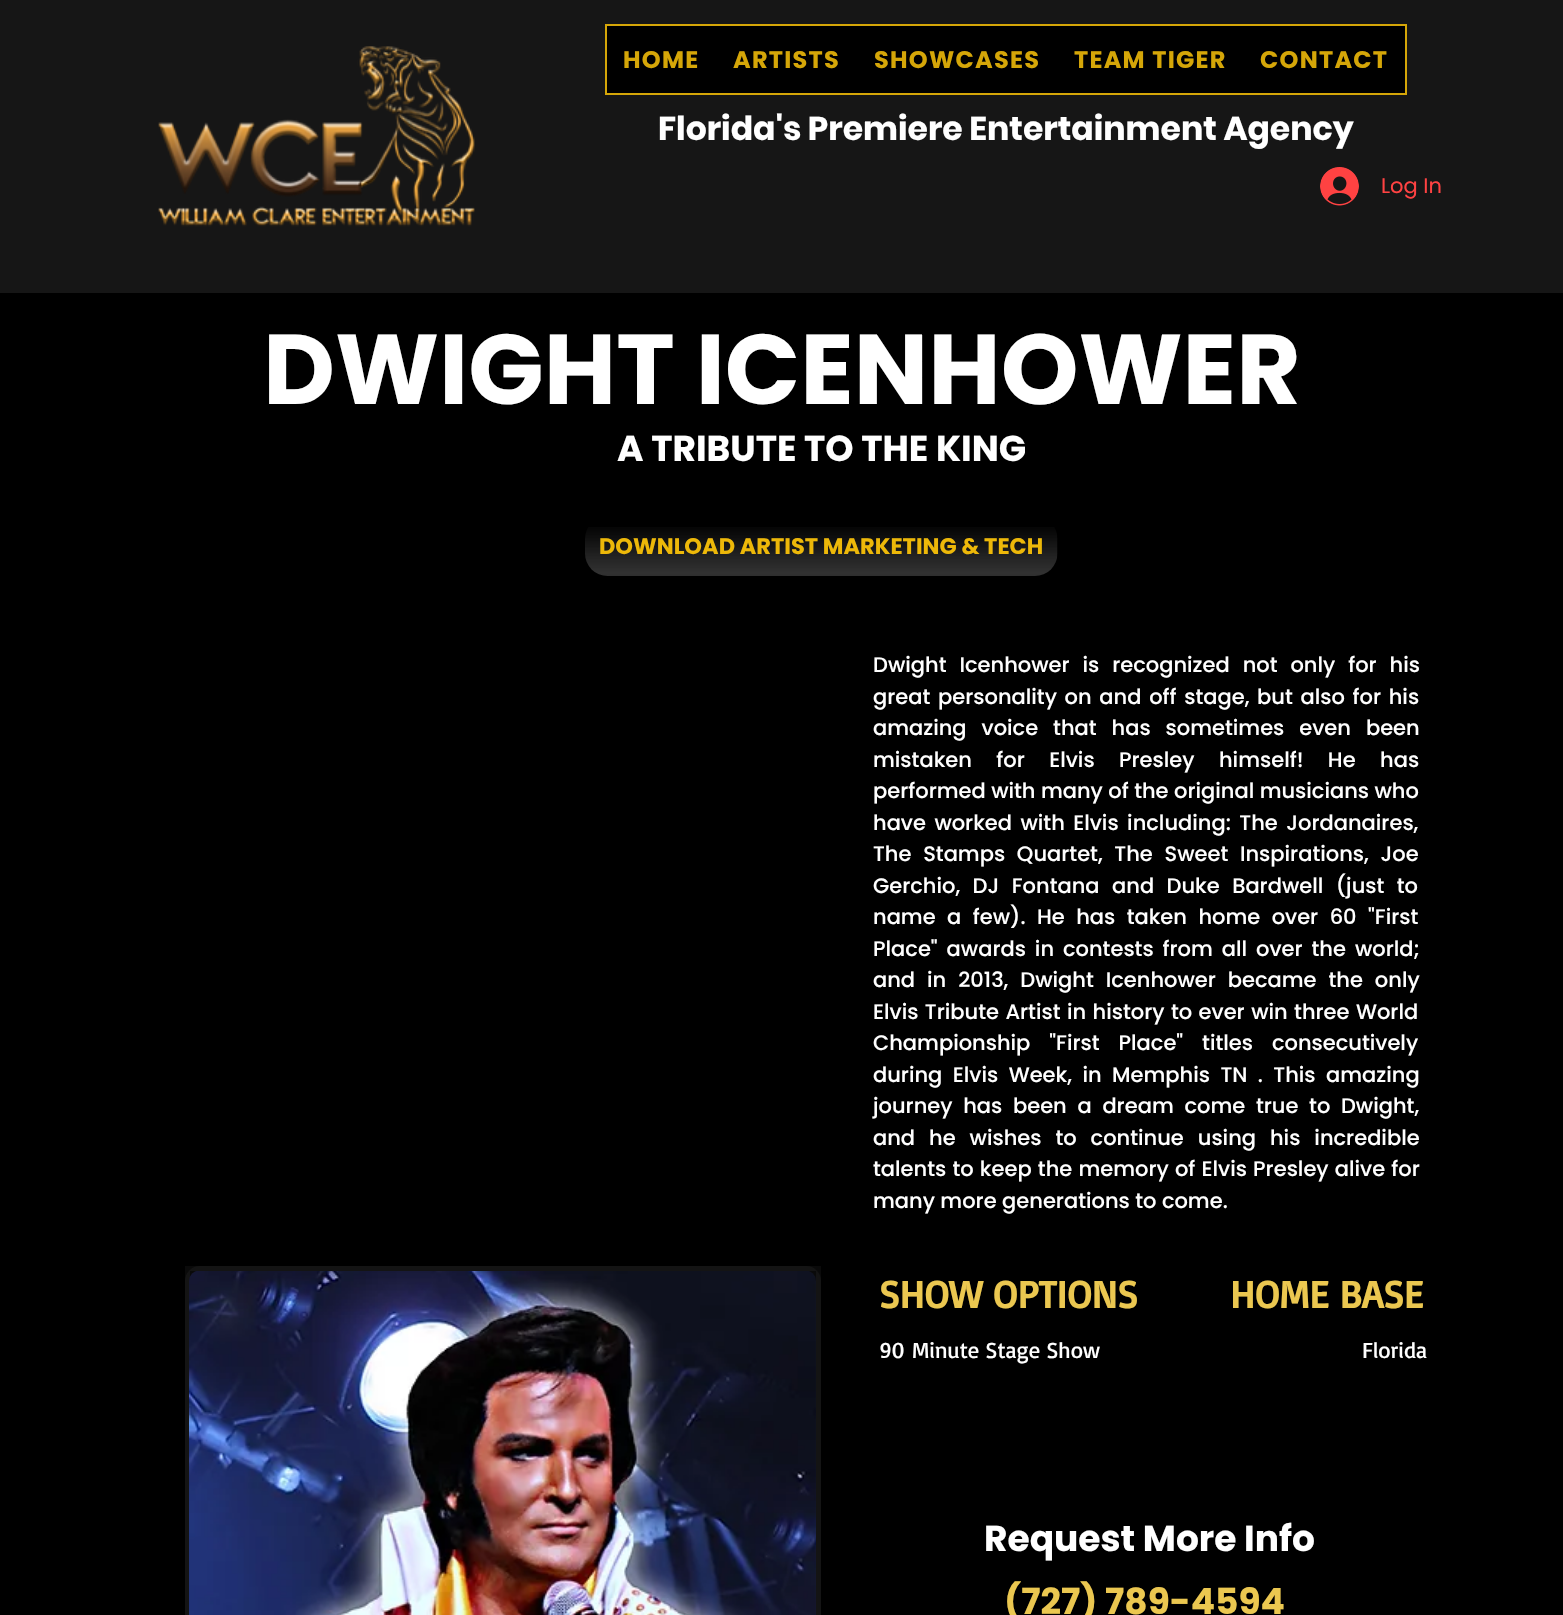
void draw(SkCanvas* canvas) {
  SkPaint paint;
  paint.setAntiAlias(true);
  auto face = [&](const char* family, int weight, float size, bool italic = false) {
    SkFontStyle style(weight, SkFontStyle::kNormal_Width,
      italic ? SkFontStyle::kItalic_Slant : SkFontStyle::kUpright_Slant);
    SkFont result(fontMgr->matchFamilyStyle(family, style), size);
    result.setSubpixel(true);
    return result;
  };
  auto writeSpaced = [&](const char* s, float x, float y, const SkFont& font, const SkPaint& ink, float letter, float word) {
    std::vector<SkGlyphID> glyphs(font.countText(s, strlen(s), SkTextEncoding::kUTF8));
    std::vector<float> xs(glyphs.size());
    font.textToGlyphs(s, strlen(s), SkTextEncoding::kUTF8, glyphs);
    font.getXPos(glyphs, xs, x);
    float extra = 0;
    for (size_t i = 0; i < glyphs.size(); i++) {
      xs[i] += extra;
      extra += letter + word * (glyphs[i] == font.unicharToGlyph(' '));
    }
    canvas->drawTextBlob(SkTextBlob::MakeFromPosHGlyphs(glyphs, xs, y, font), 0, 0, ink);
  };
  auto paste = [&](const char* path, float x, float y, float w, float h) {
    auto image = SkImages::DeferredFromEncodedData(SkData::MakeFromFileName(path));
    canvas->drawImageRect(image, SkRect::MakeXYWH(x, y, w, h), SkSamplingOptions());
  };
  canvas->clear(0xff000000);
  paint.setColor(0xff161616);
  canvas->drawRect(SkRect::MakeXYWH(0, 0, 1563, 293), paint);
  paste("img/1.png", 158, 46, 317, 181);
  paint.setColor(0xff000000);
  canvas->drawRect(SkRect::MakeXYWH(606, 25, 800, 69), paint);
  paint.setStroke(true);
  paint.setStrokeWidth(2);
  paint.setColor(0xffd5a608);
  canvas->drawRect(SkRect::MakeXYWH(606, 25, 800, 69), paint);
  paste("img/2.png", 1320, 167, 39, 39);
  paste("img/3.png", 585, 527, 473, 49);
  paint.setStroke(false);
  paint.setColor(0xff0a0a0a);
  canvas->drawRoundRect(SkRect::MakeXYWH(185, 1266, 636, 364), 15, 15, paint);
  paint.setStroke(true);
  paint.setStrokeWidth(5);
  paint.setColor(0x0affffff);
  canvas->drawRect(SkRect::MakeXYWH(187.5f, 1268.5f, 631, 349), paint);
  paste("img/4.png", 189, 1271, 627, 344);
  auto f0 = face("Poppins", 700, 24);
  paint.setStroke(false);
  paint.setColor(0xffd5a608);
  {
    const struct { const char* s; float x, y; } items[] = {
      {"HOME", 623, 68},
      {"ARTISTS", 733, 68},
      {"SHOWCASES", 874, 68},
      {"TEAM TIGER", 1074, 68},
      {"CONTACT", 1260, 68},
    };
    for (auto [s, x, y] : items) {
      writeSpaced(s, x, y, f0, paint, 1.25f, 0);
    }
  }
  auto f1 = face("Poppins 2", 700, 33);
  paint.setColor(0xffffffff);
  canvas->drawString("Florida's Premiere Entertainment Agency", 658, 140, f1, paint);
  auto f2 = face("Poppins", 400, 21);
  paint.setColor(0xffff4242);
  canvas->drawString("Log In", 1381, 193, f2, paint);
  auto f3 = face("Poppins", 700, 99);
  paint.setColor(0xffffffff);
  canvas->drawString("DWIGHT ICENHOWER", 263, 404, f3, paint);
  auto f4 = face("Poppins", 700, 36);
  canvas->drawString("A TRIBUTE TO THE KING", 617, 461, f4, paint);
  auto f5 = face("Poppins", 700, 22.5f);
  paint.setColor(0xffedb809);
  canvas->drawString("DOWNLOAD ARTIST MARKETING & TECH", 599, 554, f5, paint);
  auto f6 = face("Poppins", 500, 21);
  paint.setColor(0xffffffff);
  writeSpaced("Dwight Icenhower is recognized not only for his", 873, 672, f6, paint, 0, 7.5f);
  writeSpaced("great personality on and off stage, but also for his", 873, 704, f6, paint, 0, 2.25f);
  writeSpaced("amazing voice that has sometimes even been", 873, 735, f6, paint, 0, 9.5f);
  writeSpaced("mistaken for Elvis Presley himself! He has", 873, 767, f6, paint, 0, 19);
  canvas->drawString("performed with many of the original musicians who", 873, 798, f6, paint);
  writeSpaced("have worked with Elvis including: The Jordanaires,", 873, 830, f6, paint, 0, 3);
  writeSpaced("The Stamps Quartet, The Sweet Inspirations, Joe", 873, 861, f6, paint, 0, 6.25f);
  writeSpaced("Gerchio, DJ Fontana and Duke Bardwell (just to", 873, 893, f6, paint, 0, 7);
  writeSpaced("name a few). He has taken home over 60 \"First", 873, 924, f6, paint, 0, 6);
  writeSpaced("Place\" awards in contests from all over the world;", 873, 956, f6, paint, 0, 3.5f);
  writeSpaced("and in 2013, Dwight Icenhower became the only", 873, 987, f6, paint, 0, 6.5f);
  writeSpaced("Elvis Tribute Artist in history to ever win three World", 873, 1019, f6, paint, 0, 1);
  writeSpaced("Championship \"First Place\" titles consecutively", 873, 1050, f6, paint, 0, 13.5f);
  writeSpaced("during Elvis Week, in Memphis TN . This amazing", 873, 1082, f6, paint, 0, 5);
  writeSpaced("journey has been a dream come true to Dwight,", 873, 1113, f6, paint, 0, 5.25f);
  writeSpaced("and he wishes to continue using his incredible", 873, 1145, f6, paint, 0, 8.5f);
  writeSpaced("talents to keep the memory of Elvis Presley alive for", 873, 1176, f6, paint, 0, 0.75f);
  canvas->drawString("many more generations to come.", 873, 1208, f6, paint);
  auto f7 = face("Basic", 700, 39);
  paint.setColor(0xffebc750);
  canvas->drawString("SHOW OPTIONS", 879, 1308, f7, paint);
  canvas->drawString("HOME BASE", 1230, 1308, f7, paint);
  auto f8 = face("Basic", 400, 22.5f);
  paint.setColor(0xffffffff);
  {
    const struct { const char* s; float x, y; } items[] = {
      {"90", 879, 1358},
      {"Minute Stage Show", 912, 1358},
      {"Florida", 1362, 1358},
    };
    for (auto [s, x, y] : items) {
      canvas->drawString(s, x, y, f8, paint);
    }
  }
  canvas->drawString("Request More Info", 984, 1551, f4, paint);
  paint.setColor(0xffebc750);
  canvas->drawString("(727) 789-4594", 1004, 1614, f4, paint);
}
